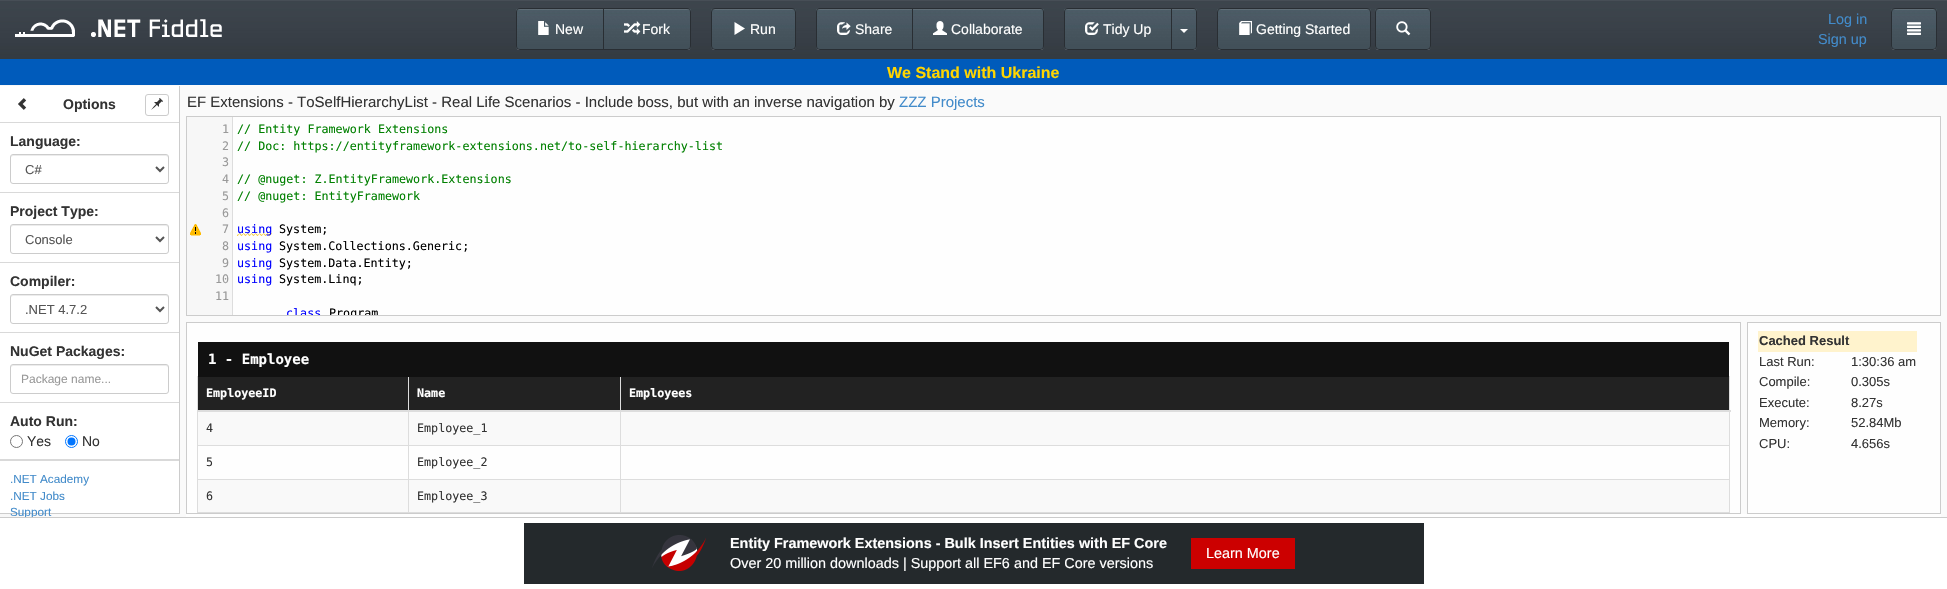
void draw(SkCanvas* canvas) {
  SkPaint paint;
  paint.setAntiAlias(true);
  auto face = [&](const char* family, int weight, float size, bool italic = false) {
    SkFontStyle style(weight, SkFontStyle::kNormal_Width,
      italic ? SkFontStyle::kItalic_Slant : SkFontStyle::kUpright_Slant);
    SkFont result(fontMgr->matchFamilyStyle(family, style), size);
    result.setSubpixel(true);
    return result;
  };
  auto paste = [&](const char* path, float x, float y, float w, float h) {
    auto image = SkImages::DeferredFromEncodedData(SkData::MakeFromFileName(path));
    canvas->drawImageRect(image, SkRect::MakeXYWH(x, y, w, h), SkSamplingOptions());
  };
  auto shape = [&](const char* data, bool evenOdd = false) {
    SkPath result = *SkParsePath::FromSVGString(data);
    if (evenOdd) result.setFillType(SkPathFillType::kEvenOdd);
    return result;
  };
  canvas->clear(0xfffafafa);
  paste("img/2.png", 0, 0, 1947, 59);
  paste("img/1.png", 15, 19, 207, 18);
  paste("img/3.png", 1040, 8, 9, 42);
  paste("img/4.png", 516, 9, 87, 41);
  paint.setStroke(true);
  paint.setStrokeWidth(1);
  paint.setColor(0xff292e33);
  canvas->drawPath(shape("M520 8.5H603.5V49.5H520C518 49.5 516.5 48 516.5 46V12C516.5 10 518 8.5 520 8.5Z"), paint);
  paste("img/5.png", 538, 21, 11, 14);
  paste("img/6.png", 604, 9, 87, 41);
  canvas->drawPath(shape("M603.5 8.5H687C689 8.5 690.5 10 690.5 12V46C690.5 48 689 49.5 687 49.5H603.5Z"), paint);
  paste("img/7.png", 624, 21, 17, 14);
  paste("img/8.png", 711, 9, 85, 41);
  canvas->drawRoundRect(SkRect::MakeXYWH(711.5f, 8.5f, 84, 41), 3.5f, 3.5f, paint);
  paint.setStroke(false);
  paint.setColor(0xffffffff);
  canvas->drawPath(shape("M734.5 35L745 28.5L734.5 22Z"), paint);
  paste("img/9.png", 816, 9, 96, 41);
  paint.setStroke(true);
  paint.setColor(0xff292e33);
  canvas->drawPath(shape("M820 8.5H912.5V49.5H820C818 49.5 816.5 48 816.5 46V12C816.5 10 818 8.5 820 8.5Z"), paint);
  paste("img/10.png", 837, 22, 14, 13);
  paste("img/11.png", 913, 9, 131, 41);
  canvas->drawPath(shape("M912.5 8.5H1040C1042 8.5 1043.5 10 1043.5 12V46C1043.5 48 1042 49.5 1040 49.5H912.5Z"), paint);
  paste("img/12.png", 933, 21, 14, 14);
  paste("img/13.png", 1064, 9, 107, 41);
  canvas->drawPath(shape("M1068 8.5H1171.5V49.5H1068C1066 49.5 1064.5 48 1064.5 46V12C1064.5 10 1066 8.5 1068 8.5Z"), paint);
  paste("img/14.png", 1085, 22, 14, 13);
  paste("img/15.png", 1172, 9, 25, 41);
  canvas->drawPath(shape("M1171.5 8.5H1193C1195 8.5 1196.5 10 1196.5 12V46C1196.5 48 1195 49.5 1193 49.5H1171.5Z"), paint);
  paint.setStroke(false);
  paint.setColor(0xffffffff);
  canvas->drawPath(shape("M1180 29H1188L1184 33Z"), paint);
  paste("img/16.png", 1217, 9, 154, 41);
  paint.setStroke(true);
  paint.setColor(0xff292e33);
  canvas->drawRoundRect(SkRect::MakeXYWH(1217.5f, 8.5f, 153, 41), 3.5f, 3.5f, paint);
  paste("img/17.png", 1239, 21, 13, 14);
  paste("img/18.png", 1375, 9, 56, 41);
  canvas->drawRoundRect(SkRect::MakeXYWH(1375.5f, 8.5f, 55, 41), 3.5f, 3.5f, paint);
  paste("img/19.png", 1396, 21, 15, 15);
  paste("img/20.png", 1891, 9, 46, 41);
  canvas->drawRoundRect(SkRect::MakeXYWH(1891.5f, 8.5f, 45, 41), 3.5f, 3.5f, paint);
  paste("img/21.png", 1907, 22, 14, 13);
  paint.setStroke(false);
  {
    const struct { float x, y, w, h; SkColor color; } items[] = {
      {0, 59, 1947, 26, 0xff005bbb},
      {0, 85, 20, 432, 0xfff7f7f7},
      {0, 86, 179, 427, 0xffffffff},
      {179, 86, 1, 428, 0xffcccccc},
      {0, 513, 180, 1, 0xffcccccc},
      {0, 122, 179, 1, 0xffd9d9d9},
    };
    for (auto [x, y, w, h, color] : items) {
      paint.setColor(color);
      canvas->drawRect(SkRect::MakeXYWH(x, y, w, h), paint);
    }
  }
  paste("img/22.png", 18, 98, 9, 12);
  paint.setStroke(true);
  paint.setColor(0xffcccccc);
  canvas->drawRoundRect(SkRect::MakeXYWH(145.5f, 94.5f, 23, 21), 2.5f, 2.5f, paint);
  paste("img/23.png", 151, 98, 12, 12);
  paint.setStroke(false);
  paint.setColor(0xffd9d9d9);
  canvas->drawRect(SkRect::MakeXYWH(0, 192, 179, 1), paint);
  paint.setColor(0xffececec);
  canvas->drawPath(shape("M13 156H166C167 156 168 157 168 158C168 157 168 155 166 155H13C11 155 11 157 11 158C11 157 12 156 13 156Z"), paint);
  paint.setStroke(true);
  paint.setColor(0xffcccccc);
  canvas->drawRoundRect(SkRect::MakeXYWH(10.5f, 154.5f, 158, 29), 2.5f, 2.5f, paint);
  paint.setStrokeWidth(2);
  paint.setColor(0xff555555);
  canvas->drawPath(shape("M156 167L160 171L164 167"), paint);
  paint.setStroke(false);
  paint.setColor(0xffd9d9d9);
  canvas->drawRect(SkRect::MakeXYWH(0, 262, 179, 1), paint);
  paint.setColor(0xffececec);
  canvas->drawPath(shape("M13 226H166C167 226 168 227 168 228C168 227 168 225 166 225H13C11 225 11 227 11 228C11 227 12 226 13 226Z"), paint);
  paint.setStroke(true);
  paint.setStrokeWidth(1);
  paint.setColor(0xffcccccc);
  canvas->drawRoundRect(SkRect::MakeXYWH(10.5f, 224.5f, 158, 29), 2.5f, 2.5f, paint);
  paint.setStrokeWidth(2);
  paint.setColor(0xff555555);
  canvas->drawPath(shape("M156 237L160 241L164 237"), paint);
  paint.setStroke(false);
  paint.setColor(0xffd9d9d9);
  canvas->drawRect(SkRect::MakeXYWH(0, 332, 179, 1), paint);
  paint.setColor(0xffececec);
  canvas->drawPath(shape("M13 296H166C167 296 168 297 168 298C168 297 168 295 166 295H13C11 295 11 297 11 298C11 297 12 296 13 296Z"), paint);
  paint.setStroke(true);
  paint.setStrokeWidth(1);
  paint.setColor(0xffcccccc);
  canvas->drawRoundRect(SkRect::MakeXYWH(10.5f, 294.5f, 158, 29), 2.5f, 2.5f, paint);
  paint.setStrokeWidth(2);
  paint.setColor(0xff555555);
  canvas->drawPath(shape("M156 307L160 311L164 307"), paint);
  paint.setStroke(false);
  paint.setColor(0xffd9d9d9);
  canvas->drawRect(SkRect::MakeXYWH(0, 402, 179, 1), paint);
  paint.setColor(0xffececec);
  canvas->drawPath(shape("M13 366H166C167 366 168 367 168 368C168 367 168 365 166 365H13C11 365 11 367 11 368C11 367 12 366 13 366Z"), paint);
  paint.setStroke(true);
  paint.setStrokeWidth(1);
  paint.setColor(0xffcccccc);
  canvas->drawRoundRect(SkRect::MakeXYWH(10.5f, 364.5f, 158, 29), 2.5f, 2.5f, paint);
  paint.setStroke(false);
  paint.setColor(0xffd9d9d9);
  canvas->drawRect(SkRect::MakeXYWH(0, 459, 179, 2), paint);
  paint.setStroke(true);
  paint.setColor(0xff767676);
  canvas->drawCircle(16.5f, 441.5f, 6, paint);
  paint.setColor(0xff0075ff);
  canvas->drawCircle(71.5f, 441.5f, 6, paint);
  paint.setStroke(false);
  canvas->drawCircle(71.5f, 441.5f, 4, paint);
  paint.setColor(0xfffefefe);
  canvas->drawRect(SkRect::MakeXYWH(186, 117, 1755, 400), paint);
  paint.setStroke(true);
  paint.setColor(0xffcccccc);
  canvas->drawRect(SkRect::MakeXYWH(186.5f, 116.5f, 1754, 199), paint);
  paint.setStroke(false);
  paint.setColor(0xfff7f7f7);
  canvas->drawRect(SkRect::MakeXYWH(187, 117, 45, 198), paint);
  paint.setColor(0xffdddddd);
  canvas->drawRect(SkRect::MakeXYWH(232, 117, 1, 198), paint);
  paste("img/24.png", 190, 224, 11, 12);
  paste("img/25.png", 237, 233, 35, 3);
  paint.setColor(0xfffafafa);
  canvas->drawRect(SkRect::MakeXYWH(186, 316, 1755, 6), paint);
  paint.setStroke(true);
  paint.setColor(0xffcccccc);
  canvas->drawRect(SkRect::MakeXYWH(186.5f, 322.5f, 1554, 191), paint);
  paint.setStroke(false);
  {
    const struct { float x, y, w, h; SkColor color; } items[] = {
      {198, 377, 1531, 33, 0xff222222},
      {197, 376, 1, 137, 0xffdddddd},
      {1729, 376, 1, 137, 0xffdddddd},
      {620, 445, 1110, 1, 0xffdddddd},
      {620, 479, 1110, 1, 0xffdddddd},
      {197, 512, 1533, 1, 0xffdddddd},
      {620, 479, 1, 34, 0xffdddddd},
      {408, 479, 213, 1, 0xffdddddd},
      {620, 445, 1, 35, 0xffdddddd},
      {408, 445, 213, 1, 0xffdddddd},
      {408, 479, 1, 34, 0xffdddddd},
      {197, 479, 212, 1, 0xffdddddd},
      {408, 445, 1, 35, 0xffdddddd},
      {197, 445, 212, 1, 0xffdddddd},
      {408, 376, 1, 70, 0xffdddddd},
      {620, 376, 1, 70, 0xffdddddd},
      {198, 342, 1531, 35, 0xff111111},
      {197, 410, 1534, 2, 0xffdddddd},
      {198, 412, 210, 33, 0xfff9f9f9},
      {409, 412, 211, 33, 0xfff9f9f9},
      {621, 412, 1108, 33, 0xfff9f9f9},
      {198, 480, 210, 32, 0xfff9f9f9},
      {409, 480, 211, 32, 0xfff9f9f9},
      {621, 480, 1108, 32, 0xfff9f9f9},
      {1741, 322, 6, 192, 0xfffafafa},
    };
    for (auto [x, y, w, h, color] : items) {
      paint.setColor(color);
      canvas->drawRect(SkRect::MakeXYWH(x, y, w, h), paint);
    }
  }
  paint.setStroke(true);
  paint.setColor(0xffcccccc);
  canvas->drawRect(SkRect::MakeXYWH(1747.5f, 322.5f, 193, 191), paint);
  paint.setStroke(false);
  paint.setColor(0xfffff3cd);
  canvas->drawRect(SkRect::MakeXYWH(1758, 331, 159, 21), paint);
  auto f0 = face("Liberation Sans", 400, 14);
  paint.setColor(0xffffffff);
  {
    const struct { const char* s; float x, y; } items[] = {
      {"New", 555, 34},
      {"Fork", 642, 34},
      {"Run", 750, 34},
      {"Share", 855, 34},
      {"Collaborate", 951, 34},
      {"Tidy Up", 1103, 34},
      {"Getting Started", 1256, 34},
    };
    for (auto [s, x, y] : items) {
      canvas->drawString(s, x, y, f0, paint);
    }
  }
  auto f1 = face("Liberation Sans", 400, 14.4f);
  paint.setColor(0xff428bca);
  canvas->drawString("Log in", 1828, 24, f1, paint);
  canvas->drawString("Sign up", 1818, 44, f1, paint);
  auto f2 = face("Liberation Sans", 700, 16);
  paint.setColor(0xffffd500);
  canvas->drawString("We Stand with Ukraine", 887, 78, f2, paint);
  auto f3 = face("Liberation Sans", 400, 15);
  paint.setColor(0xff333333);
  canvas->drawString("EF Extensions - ToSelfHierarchyList - Real Life Scenarios - Include boss, but with an inverse navigation by", 187, 107, f3, paint);
  paint.setColor(0xff428bca);
  canvas->drawString("ZZZ Projects", 899, 107, f3, paint);
  auto f4 = face("Liberation Sans", 700, 14);
  paint.setColor(0xff333333);
  canvas->drawString("Options", 63, 109, f4, paint);
  canvas->drawString("Language:", 10, 146, f4, paint);
  auto f5 = face("Liberation Sans", 400, 13);
  paint.setColor(0xff555555);
  canvas->drawString("C#", 25, 174, f5, paint);
  paint.setColor(0xff333333);
  canvas->drawString("Project Type:", 10, 216, f4, paint);
  paint.setColor(0xff555555);
  canvas->drawString("Console", 25, 244, f5, paint);
  paint.setColor(0xff333333);
  canvas->drawString("Compiler:", 10, 286, f4, paint);
  paint.setColor(0xff555555);
  canvas->drawString(".NET 4.7.2", 25, 314, f5, paint);
  paint.setColor(0xff333333);
  canvas->drawString("NuGet Packages:", 10, 356, f4, paint);
  auto f6 = face("Liberation Sans", 400, 12);
  paint.setColor(0xff999999);
  canvas->drawString("Package name...", 21, 383, f6, paint);
  paint.setColor(0xff333333);
  canvas->drawString("Auto Run:", 10, 426, f4, paint);
  canvas->drawString("Yes", 27, 446, f0, paint);
  canvas->drawString("No", 82, 446, f0, paint);
  auto f7 = face("Liberation Sans", 400, 11.75f);
  paint.setColor(0xff428bca);
  {
    const struct { const char* s; float x, y; } items[] = {
      {".NET Academy", 10, 483},
      {".NET Jobs", 10, 500},
      {"Support", 10, 516},
    };
    for (auto [s, x, y] : items) {
      canvas->drawString(s, x, y, f7, paint);
    }
  }
  auto f8 = face("DejaVu Sans Mono", 400, 11.7f);
  paint.setColor(0xff999999);
  canvas->drawString("1", 222, 133, f8, paint);
  paint.setColor(0xff008000);
  canvas->drawString("// Entity Framework Extensions", 237, 133, f8, paint);
  paint.setColor(0xff999999);
  canvas->drawString("2", 222, 150, f8, paint);
  paint.setColor(0xff008000);
  canvas->drawString("// Doc: https://entityframework-extensions.net/to-self-hierarchy-list", 237, 150, f8, paint);
  paint.setColor(0xff999999);
  canvas->drawString("3", 222, 166, f8, paint);
  canvas->drawString("4", 222, 183, f8, paint);
  paint.setColor(0xff008000);
  canvas->drawString("// @nuget: Z.EntityFramework.Extensions", 237, 183, f8, paint);
  paint.setColor(0xff999999);
  canvas->drawString("5", 222, 200, f8, paint);
  paint.setColor(0xff008000);
  canvas->drawString("// @nuget: EntityFramework", 237, 200, f8, paint);
  paint.setColor(0xff999999);
  canvas->drawString("6", 222, 217, f8, paint);
  canvas->drawString("7", 222, 233, f8, paint);
  paint.setColor(0xff0000ff);
  canvas->drawString("using", 237, 233, f8, paint);
  paint.setColor(0xff000000);
  canvas->drawString("System;", 279, 233, f8, paint);
  paint.setColor(0xff999999);
  canvas->drawString("8", 222, 250, f8, paint);
  paint.setColor(0xff0000ff);
  canvas->drawString("using", 237, 250, f8, paint);
  paint.setColor(0xff000000);
  canvas->drawString("System.Collections.Generic;", 279, 250, f8, paint);
  paint.setColor(0xff999999);
  canvas->drawString("9", 222, 267, f8, paint);
  paint.setColor(0xff0000ff);
  canvas->drawString("using", 237, 267, f8, paint);
  paint.setColor(0xff000000);
  canvas->drawString("System.Data.Entity;", 279, 267, f8, paint);
  paint.setColor(0xff999999);
  canvas->drawString("10", 215, 283, f8, paint);
  paint.setColor(0xff0000ff);
  canvas->drawString("using", 237, 283, f8, paint);
  paint.setColor(0xff000000);
  canvas->drawString("System.Linq;", 279, 283, f8, paint);
  paint.setColor(0xff999999);
  canvas->drawString("11", 215, 300, f8, paint);
  canvas->save();
  canvas->clipRect(SkRect::MakeXYWH(187, 117, 1753, 198));
  paint.setColor(0xff0000ff);
  canvas->drawString("class", 286, 317, f8, paint);
  paint.setColor(0xff000000);
  canvas->drawString("Program", 329, 317, f8, paint);
  canvas->restore();
  auto f9 = face("DejaVu Sans Mono", 700, 14);
  paint.setColor(0xffffffff);
  canvas->drawString("1 - Employee", 208, 364, f9, paint);
  auto f10 = face("DejaVu Sans Mono", 700, 11.7f);
  {
    const struct { const char* s; float x, y; } items[] = {
      {"EmployeeID", 206, 397},
      {"Name", 417, 397},
      {"Employees", 629, 397},
    };
    for (auto [s, x, y] : items) {
      canvas->drawString(s, x, y, f10, paint);
    }
  }
  paint.setColor(0xff333333);
  {
    const struct { const char* s; float x, y; } items[] = {
      {"4", 206, 432},
      {"Employee_1", 417, 432},
      {"5", 206, 466},
      {"Employee_2", 417, 466},
      {"6", 206, 500},
      {"Employee_3", 417, 500},
    };
    for (auto [s, x, y] : items) {
      canvas->drawString(s, x, y, f8, paint);
    }
  }
  auto f11 = face("Liberation Sans", 700, 13);
  canvas->drawString("Cached Result", 1759, 345, f11, paint);
  {
    const struct { const char* s; float x, y; } items[] = {
      {"Last Run:", 1759, 366},
      {"1:30:36 am", 1851, 366},
      {"Compile:", 1759, 386},
      {"0.305s", 1851, 386},
      {"Execute:", 1759, 407},
      {"8.27s", 1851, 407},
      {"Memory:", 1759, 427},
      {"52.84Mb", 1851, 427},
      {"CPU:", 1759, 448},
      {"4.656s", 1851, 448},
    };
    for (auto [s, x, y] : items) {
      canvas->drawString(s, x, y, f5, paint);
    }
  }
  {
    const struct { float x, y, w, h; SkColor color; } items[] = {
      {0, 518, 1947, 71, 0xffffffff},
      {0, 517, 1947, 1, 0xffcbcbcb},
      {524, 523, 900, 61, 0xff24292c},
    };
    for (auto [x, y, w, h, color] : items) {
      paint.setColor(color);
      canvas->drawRect(SkRect::MakeXYWH(x, y, w, h), paint);
    }
  }
  paste("img/26.png", 652, 535, 54, 36);
  auto f12 = face("Liberation Sans", 700, 14.4f);
  paint.setColor(0xffffffff);
  canvas->drawString("Entity Framework Extensions - Bulk Insert Entities with EF Core", 730, 548, f12, paint);
  canvas->drawString("Over 20 million downloads | Support all EF6 and EF Core versions", 730, 568, f1, paint);
  paint.setColor(0xffcc0000);
  canvas->drawRect(SkRect::MakeXYWH(1191, 538, 104, 31), paint);
  paint.setColor(0xffffffff);
  canvas->drawString("Learn More", 1206, 558, f1, paint);
}
